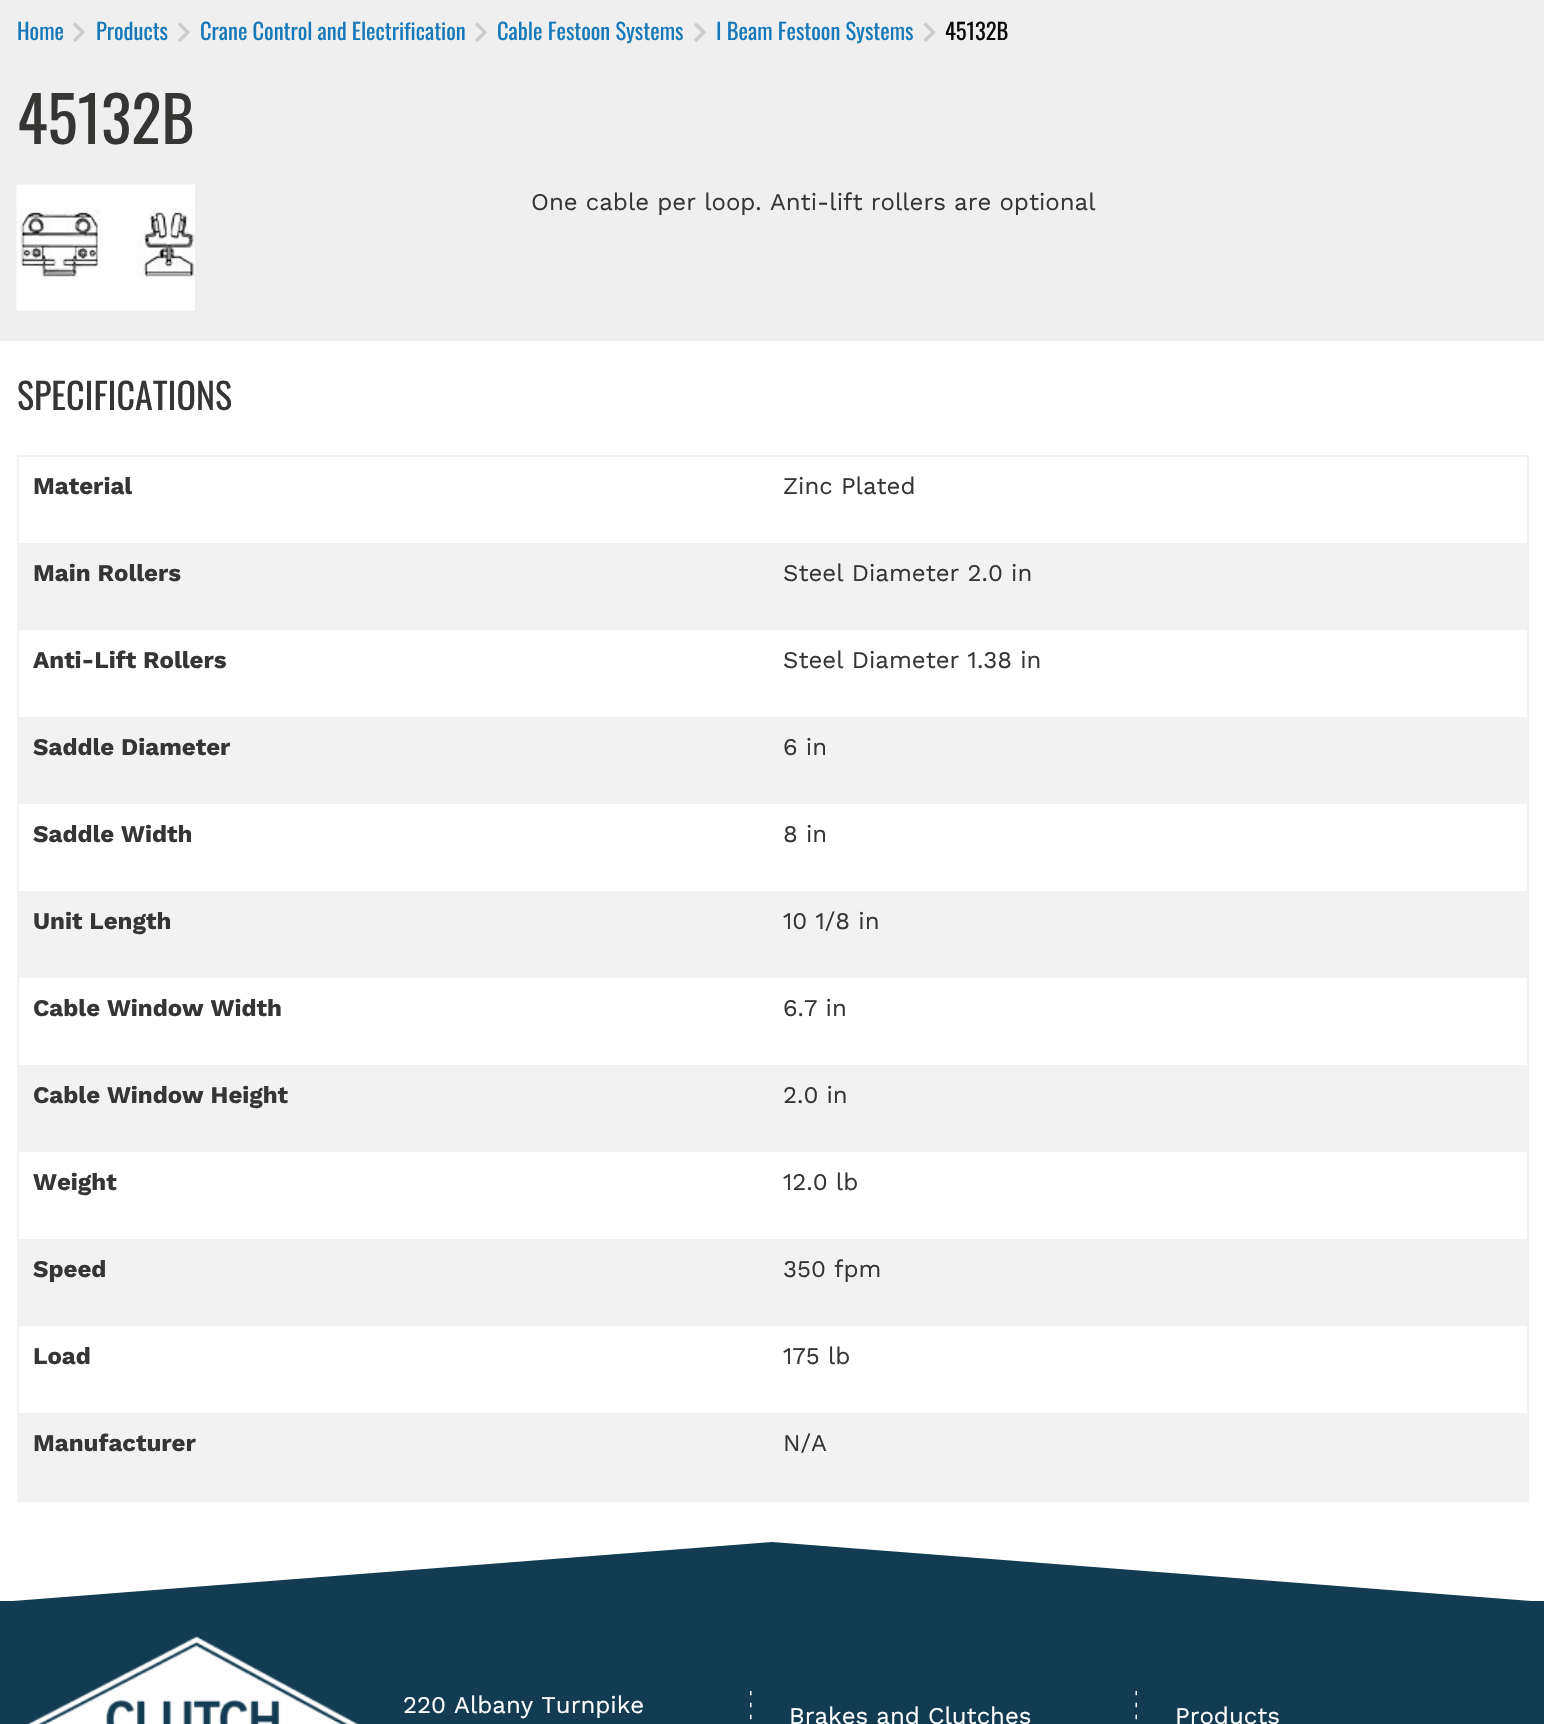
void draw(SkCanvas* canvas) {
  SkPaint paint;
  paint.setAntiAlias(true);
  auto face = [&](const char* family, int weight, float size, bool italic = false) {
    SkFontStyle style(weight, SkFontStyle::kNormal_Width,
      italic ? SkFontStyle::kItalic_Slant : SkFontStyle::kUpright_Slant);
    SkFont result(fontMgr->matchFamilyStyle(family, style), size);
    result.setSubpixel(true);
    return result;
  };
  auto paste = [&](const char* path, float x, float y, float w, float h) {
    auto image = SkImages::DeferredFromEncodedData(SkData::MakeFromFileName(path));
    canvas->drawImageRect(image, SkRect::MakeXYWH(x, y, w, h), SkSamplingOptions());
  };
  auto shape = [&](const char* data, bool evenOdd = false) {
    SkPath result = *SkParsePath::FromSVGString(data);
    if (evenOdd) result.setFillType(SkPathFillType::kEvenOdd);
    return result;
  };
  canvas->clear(0xffffffff);
  paint.setColor(0xffefefef);
  canvas->drawRect(SkRect::MakeXYWH(0, 0, 1544, 341), paint);
  paste("img/1.png", 73, 22, 12, 20);
  paste("img/1.png", 178, 22, 12, 20);
  paste("img/1.png", 475, 22, 12, 20);
  paste("img/1.png", 694, 22, 12, 20);
  paste("img/2.png", 923, 22, 13, 20);
  paste("img/3.png", 16, 184, 179, 127);
  {
    const struct { float x, y, w, h; SkColor color; } items[] = {
      {17, 455, 1512, 2, 0xfff2f2f2},
      {1527, 455, 2, 1047, 0xfff2f2f2},
      {17, 1500, 1512, 2, 0xfff2f2f2},
      {17, 455, 2, 1047, 0xfff2f2f2},
      {19, 543, 1508, 87, 0xfff2f2f2},
      {19, 717, 1508, 87, 0xfff2f2f2},
      {19, 891, 1508, 87, 0xfff2f2f2},
      {19, 1065, 1508, 87, 0xfff2f2f2},
      {19, 1239, 1508, 87, 0xfff2f2f2},
      {19, 1413, 1508, 87, 0xfff2f2f2},
      {0, 1601, 1544, 123, 0xff133b52},
    };
    for (auto [x, y, w, h, color] : items) {
      paint.setColor(color);
      canvas->drawRect(SkRect::MakeXYWH(x, y, w, h), paint);
    }
  }
  canvas->drawPath(shape("M772 1542L0 1602H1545Z"), paint);
  paste("img/4.png", 26, 1636, 333, 88);
  paste("img/5.png", 750, 1691, 2, 29);
  paste("img/6.png", 1135, 1691, 2, 29);
  auto f0 = face("Oswald", 400, 22.5f);
  paint.setColor(0xff1779ba);
  {
    const struct { const char* s; float x, y; } items[] = {
      {"Home", 17, 40},
      {"Products", 96, 40},
      {"Crane Control and Electrification", 200, 40},
      {"Cable Festoon Systems", 497, 40},
      {"I Beam Festoon Systems", 716, 40},
    };
    for (auto [s, x, y] : items) {
      canvas->drawString(s, x, y, f0, paint);
    }
  }
  paint.setColor(0xff0a0a0a);
  canvas->drawString("45132B", 945, 40, f0, paint);
  auto f1 = face("Oswald", 400, 63);
  paint.setColor(0xff353534);
  canvas->drawString("45132B", 17, 144, f1, paint);
  auto f2 = face("Work Sans", 400, 24);
  canvas->drawString("One cable per loop. Anti-lift rollers are optional", 531, 210, f2, paint);
  auto f3 = face("Oswald", 400, 36);
  canvas->drawString("SPECIFICATIONS", 17, 410, f3, paint);
  auto f4 = face("Work Sans", 700, 24);
  canvas->drawString("Material", 33, 494, f4, paint);
  canvas->drawString("Zinc Plated", 783, 494, f2, paint);
  canvas->drawString("Main Rollers", 33, 581, f4, paint);
  canvas->drawString("Steel Diameter 2.0 in", 783, 581, f2, paint);
  canvas->drawString("Anti-Lift Rollers", 33, 668, f4, paint);
  canvas->drawString("Steel Diameter 1.38 in", 783, 668, f2, paint);
  canvas->drawString("Saddle Diameter", 33, 755, f4, paint);
  canvas->drawString("6 in", 783, 755, f2, paint);
  canvas->drawString("Saddle Width", 33, 842, f4, paint);
  canvas->drawString("8 in", 783, 842, f2, paint);
  canvas->drawString("Unit Length", 33, 929, f4, paint);
  canvas->drawString("10 1/8 in", 783, 929, f2, paint);
  canvas->drawString("Cable Window Width", 33, 1016, f4, paint);
  canvas->drawString("6.7 in", 783, 1016, f2, paint);
  canvas->drawString("Cable Window Height", 33, 1103, f4, paint);
  canvas->drawString("2.0 in", 783, 1103, f2, paint);
  canvas->drawString("Weight", 33, 1190, f4, paint);
  canvas->drawString("12.0 lb", 783, 1190, f2, paint);
  canvas->drawString("Speed", 33, 1277, f4, paint);
  canvas->drawString("350 fpm", 783, 1277, f2, paint);
  canvas->drawString("Load", 33, 1364, f4, paint);
  canvas->drawString("175 lb", 783, 1364, f2, paint);
  canvas->drawString("Manufacturer", 33, 1451, f4, paint);
  canvas->drawString("N/A", 783, 1451, f2, paint);
  paint.setColor(0xffffffff);
  {
    const struct { const char* s; float x, y; } items[] = {
      {"220 Albany Turnpike", 403, 1713},
      {"Brakes and Clutches", 789, 1724},
      {"Products", 1175, 1724},
    };
    for (auto [s, x, y] : items) {
      canvas->drawString(s, x, y, f2, paint);
    }
  }
}
